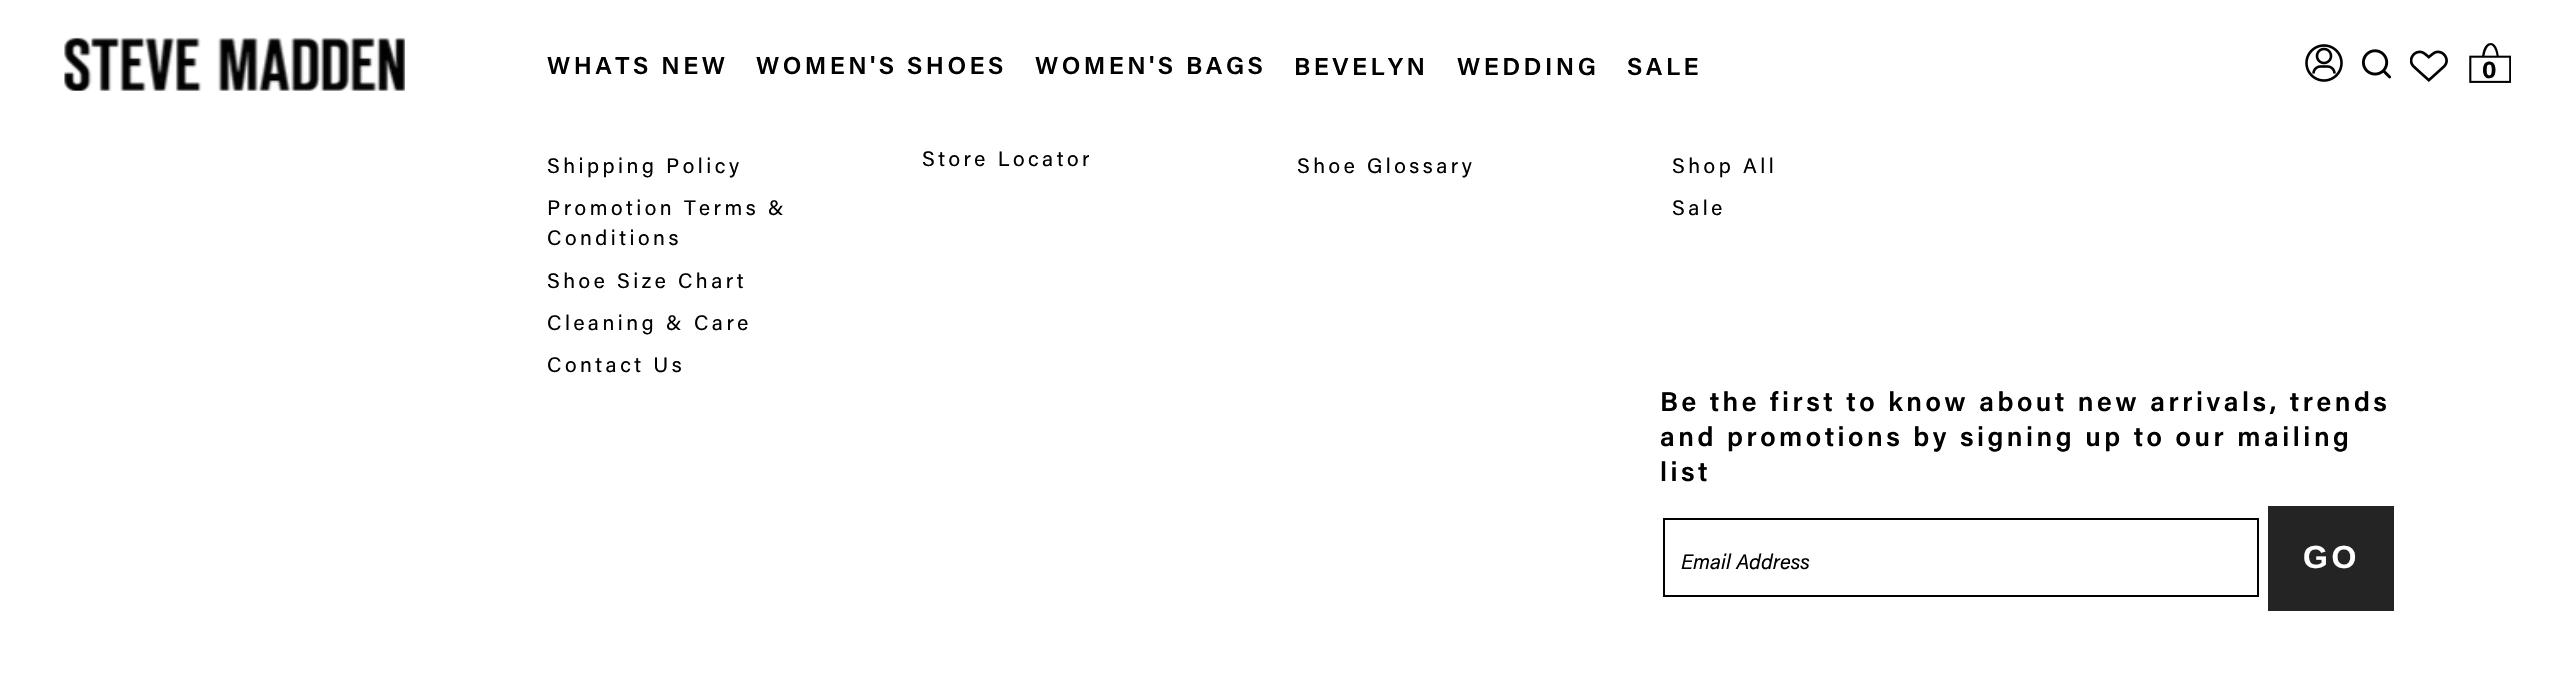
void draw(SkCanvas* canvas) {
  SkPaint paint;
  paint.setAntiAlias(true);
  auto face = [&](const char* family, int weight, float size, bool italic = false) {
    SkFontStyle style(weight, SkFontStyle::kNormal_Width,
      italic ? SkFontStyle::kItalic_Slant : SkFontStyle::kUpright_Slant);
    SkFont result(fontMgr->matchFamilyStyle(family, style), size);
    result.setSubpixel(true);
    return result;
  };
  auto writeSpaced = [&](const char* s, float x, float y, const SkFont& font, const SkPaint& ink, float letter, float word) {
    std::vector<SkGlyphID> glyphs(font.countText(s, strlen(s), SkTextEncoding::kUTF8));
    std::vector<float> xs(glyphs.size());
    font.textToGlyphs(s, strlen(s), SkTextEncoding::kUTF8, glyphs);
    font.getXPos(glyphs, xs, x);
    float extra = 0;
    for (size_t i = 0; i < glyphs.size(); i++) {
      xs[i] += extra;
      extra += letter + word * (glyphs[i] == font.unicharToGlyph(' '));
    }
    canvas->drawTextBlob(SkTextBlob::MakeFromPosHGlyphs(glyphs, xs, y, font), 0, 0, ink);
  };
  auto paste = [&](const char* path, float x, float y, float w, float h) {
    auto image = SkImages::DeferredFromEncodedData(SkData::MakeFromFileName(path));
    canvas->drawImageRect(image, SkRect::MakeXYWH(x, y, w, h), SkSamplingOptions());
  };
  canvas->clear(0xffffffff);
  paste("img/1.png", 64, 37, 341, 54);
  paste("img/2.png", 2305, 44, 38, 38);
  paste("img/3.png", 2361, 49, 30, 30);
  paste("img/4.png", 2410, 50, 38, 32);
  paste("img/5.png", 2469, 43, 42, 40);
  paint.setStroke(true);
  paint.setStrokeWidth(2);
  paint.setColor(0xff000000);
  canvas->drawRect(SkRect::MakeXYWH(1664, 519, 594, 77), paint);
  paint.setStroke(false);
  paint.setColor(0xff242424);
  canvas->drawRect(SkRect::MakeXYWH(2268, 506, 126, 105), paint);
  auto f0 = face("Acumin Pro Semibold", 600, 24.5f);
  paint.setColor(0xff000000);
  {
    const struct { const char* s; float x, y; } items[] = {
      {"WHATS NEW", 547, 74},
      {"WOMEN'S SHOES", 756, 74},
      {"WOMEN'S BAGS", 1035, 74},
      {"BEVELYN", 1294, 75},
      {"WEDDING", 1457, 75},
      {"SALE", 1627, 75},
    };
    for (auto [s, x, y] : items) {
      writeSpaced(s, x, y, f0, paint, 3.5f, 0);
    }
  }
  auto f1 = face("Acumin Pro", 700, 24.5f);
  writeSpaced("0", 2482, 78, f1, paint, 1, 0);
  auto f2 = face("Acumin Pro", 400, 21);
  {
    const struct { const char* s; float x, y; } items[] = {
      {"Shipping Policy", 547, 173},
      {"Promotion Terms &", 547, 215},
      {"Conditions", 547, 245},
      {"Shoe Size Chart", 547, 288},
      {"Cleaning & Care", 547, 330},
      {"Contact Us", 547, 372},
      {"Store Locator", 922, 166},
      {"Shoe Glossary", 1297, 173},
      {"Shop All", 1672, 173},
      {"Sale", 1672, 215},
    };
    for (auto [s, x, y] : items) {
      writeSpaced(s, x, y, f2, paint, 3.5f, 0);
    }
  }
  auto f3 = face("Acumin Pro Semibold", 600, 26.95f);
  {
    const struct { const char* s; float x, y; } items[] = {
      {"Be the first to know about new arrivals, trends", 1660, 411},
      {"and promotions by signing up to our mailing", 1660, 446},
      {"list", 1660, 481},
    };
    for (auto [s, x, y] : items) {
      writeSpaced(s, x, y, f3, paint, 3.5f, 0);
    }
  }
  auto f4 = face("Acumin Pro", 400, 21, true);
  canvas->drawString("Email Address", 1681, 569, f4, paint);
  auto f5 = face("Liberation Sans", 700, 32);
  paint.setColor(0xffffffff);
  writeSpaced("GO", 2303, 568, f5, paint, 3.5f, 0);
}
